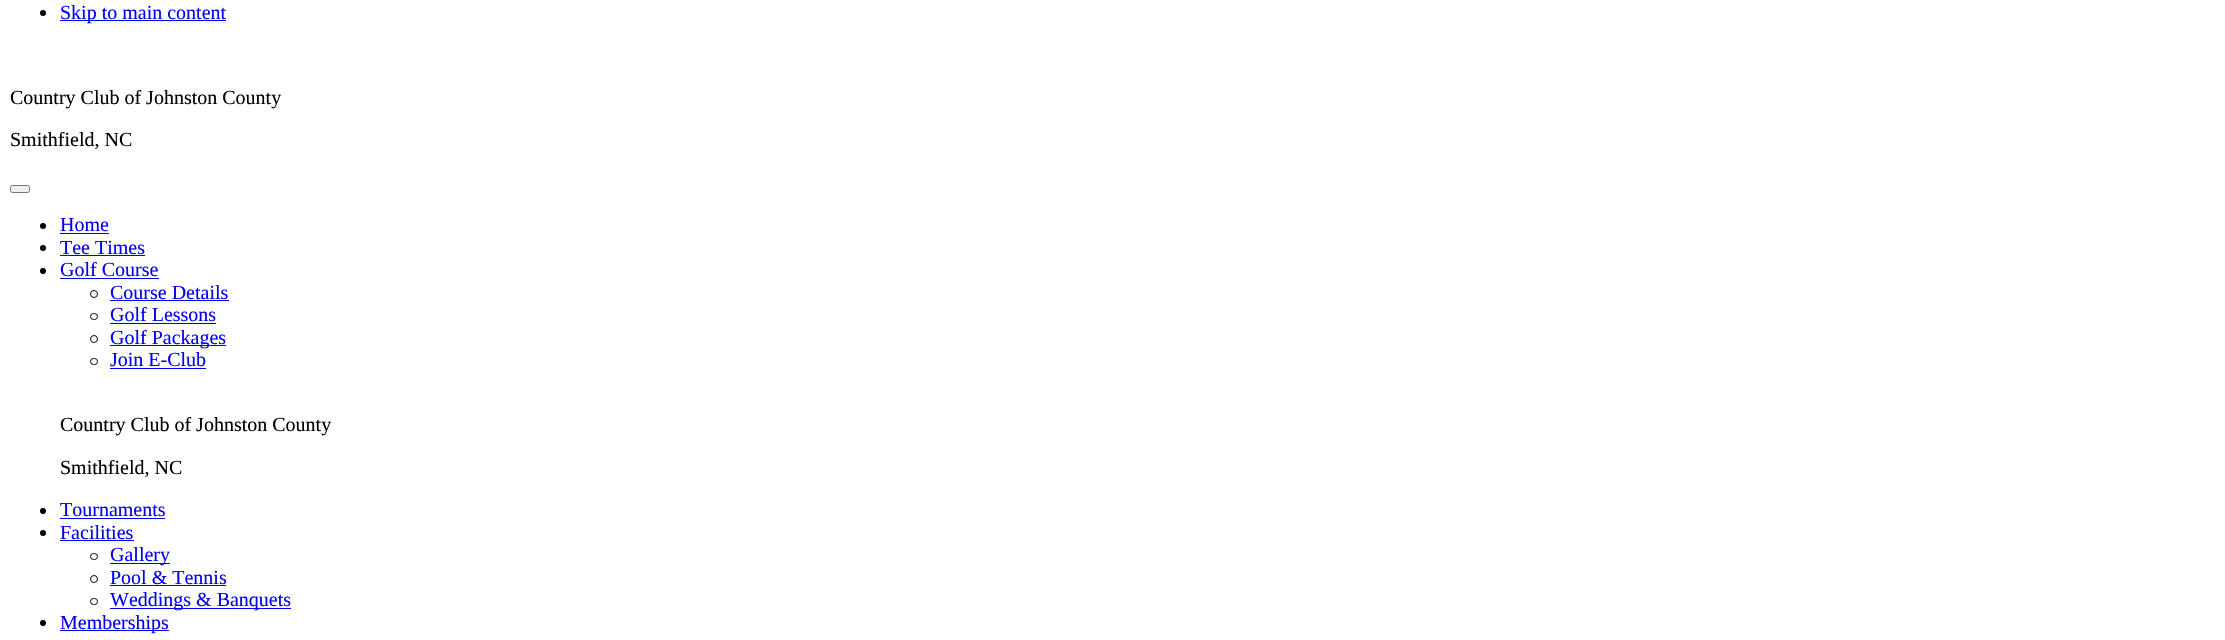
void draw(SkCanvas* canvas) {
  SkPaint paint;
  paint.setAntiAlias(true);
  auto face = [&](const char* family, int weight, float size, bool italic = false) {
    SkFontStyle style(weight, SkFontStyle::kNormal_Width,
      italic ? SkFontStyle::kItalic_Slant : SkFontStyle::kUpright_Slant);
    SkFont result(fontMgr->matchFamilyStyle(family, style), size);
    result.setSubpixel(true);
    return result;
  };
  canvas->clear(0xffffffff);
  paint.setColor(0xff000000);
  canvas->drawCircle(43, 13, 3, paint);
  paint.setColor(0xff0000ee);
  canvas->drawRect(SkRect::MakeXYWH(60, 20, 166, 1), paint);
  paint.setColor(0xffefefef);
  canvas->drawRoundRect(SkRect::MakeXYWH(10.5f, 185.5f, 19, 7), 2, 2, paint);
  paint.setStroke(true);
  paint.setStrokeWidth(1);
  paint.setColor(0xff767676);
  canvas->drawRoundRect(SkRect::MakeXYWH(10.5f, 185.5f, 19, 7), 2, 2, paint);
  paint.setStroke(false);
  paint.setColor(0xff000000);
  canvas->drawCircle(43, 226, 3, paint);
  paint.setColor(0xff0000ee);
  canvas->drawRect(SkRect::MakeXYWH(60, 233, 49, 1), paint);
  paint.setColor(0xff000000);
  canvas->drawCircle(43, 248, 3, paint);
  paint.setColor(0xff0000ee);
  canvas->drawRect(SkRect::MakeXYWH(60, 255, 85, 1), paint);
  paint.setColor(0xff000000);
  canvas->drawCircle(43, 271, 3, paint);
  paint.setColor(0xff0000ee);
  canvas->drawRect(SkRect::MakeXYWH(60, 278, 99, 1), paint);
  paint.setStroke(true);
  paint.setColor(0xff000000);
  canvas->drawCircle(94, 294, 3.5f, paint);
  paint.setStroke(false);
  paint.setColor(0xff0000ee);
  canvas->drawRect(SkRect::MakeXYWH(110, 300, 119, 1), paint);
  paint.setStroke(true);
  paint.setColor(0xff000000);
  canvas->drawRoundRect(SkRect::MakeXYWH(90.5f, 313.5f, 7, 6), 3, 3, paint);
  paint.setStroke(false);
  paint.setColor(0xff0000ee);
  canvas->drawRect(SkRect::MakeXYWH(110, 323, 106, 1), paint);
  paint.setStroke(true);
  paint.setColor(0xff000000);
  canvas->drawCircle(94, 339, 3.5f, paint);
  paint.setStroke(false);
  paint.setColor(0xff0000ee);
  canvas->drawRect(SkRect::MakeXYWH(110, 345, 116, 1), paint);
  paint.setStroke(true);
  paint.setColor(0xff000000);
  canvas->drawRoundRect(SkRect::MakeXYWH(90.5f, 358.5f, 7, 6), 3, 3, paint);
  paint.setStroke(false);
  paint.setColor(0xff0000ee);
  canvas->drawRect(SkRect::MakeXYWH(110, 368, 96, 1), paint);
  paint.setColor(0xff000000);
  canvas->drawCircle(43, 511, 3, paint);
  paint.setColor(0xff0000ee);
  canvas->drawRect(SkRect::MakeXYWH(60, 518, 105, 1), paint);
  paint.setColor(0xff000000);
  canvas->drawCircle(43, 533, 3, paint);
  paint.setColor(0xff0000ee);
  canvas->drawRect(SkRect::MakeXYWH(60, 540, 74, 1), paint);
  paint.setStroke(true);
  paint.setColor(0xff000000);
  canvas->drawRoundRect(SkRect::MakeXYWH(90.5f, 553.5f, 7, 6), 3, 3, paint);
  paint.setStroke(false);
  paint.setColor(0xff0000ee);
  canvas->drawRect(SkRect::MakeXYWH(110, 563, 60, 1), paint);
  paint.setStroke(true);
  paint.setColor(0xff000000);
  canvas->drawCircle(94, 579, 3.5f, paint);
  paint.setStroke(false);
  paint.setColor(0xff0000ee);
  canvas->drawRect(SkRect::MakeXYWH(110, 585, 116, 1), paint);
  paint.setStroke(true);
  paint.setColor(0xff000000);
  canvas->drawRoundRect(SkRect::MakeXYWH(90.5f, 598.5f, 7, 6), 3, 3, paint);
  paint.setStroke(false);
  paint.setColor(0xff0000ee);
  canvas->drawRect(SkRect::MakeXYWH(110, 608, 181, 1), paint);
  paint.setColor(0xff000000);
  canvas->drawCircle(43, 623, 3, paint);
  paint.setColor(0xff0000ee);
  canvas->drawRect(SkRect::MakeXYWH(60, 630, 109, 1), paint);
  auto f0 = face("Liberation Serif", 400, 20);
  canvas->drawString("Skip to main content", 60, 19, f0, paint);
  paint.setColor(0xff000000);
  canvas->drawString("Country Club of Johnston County", 10, 104, f0, paint);
  canvas->drawString("Smithfield, NC", 10, 146, f0, paint);
  paint.setColor(0xff0000ee);
  {
    const struct { const char* s; float x, y; } items[] = {
      {"Home", 60, 231},
      {"Tee Times", 60, 254},
      {"Golf Course", 60, 276},
      {"Course Details", 110, 299},
      {"Golf Lessons", 110, 321},
      {"Golf Packages", 110, 344},
      {"Join E-Club", 110, 366},
    };
    for (auto [s, x, y] : items) {
      canvas->drawString(s, x, y, f0, paint);
    }
  }
  paint.setColor(0xff000000);
  canvas->drawString("Country Club of Johnston County", 60, 431, f0, paint);
  canvas->drawString("Smithfield, NC", 60, 474, f0, paint);
  paint.setColor(0xff0000ee);
  {
    const struct { const char* s; float x, y; } items[] = {
      {"Tournaments", 60, 516},
      {"Facilities", 60, 539},
      {"Gallery", 110, 561},
      {"Pool & Tennis", 110, 584},
      {"Weddings & Banquets", 110, 606},
      {"Memberships", 60, 629},
    };
    for (auto [s, x, y] : items) {
      canvas->drawString(s, x, y, f0, paint);
    }
  }
}
